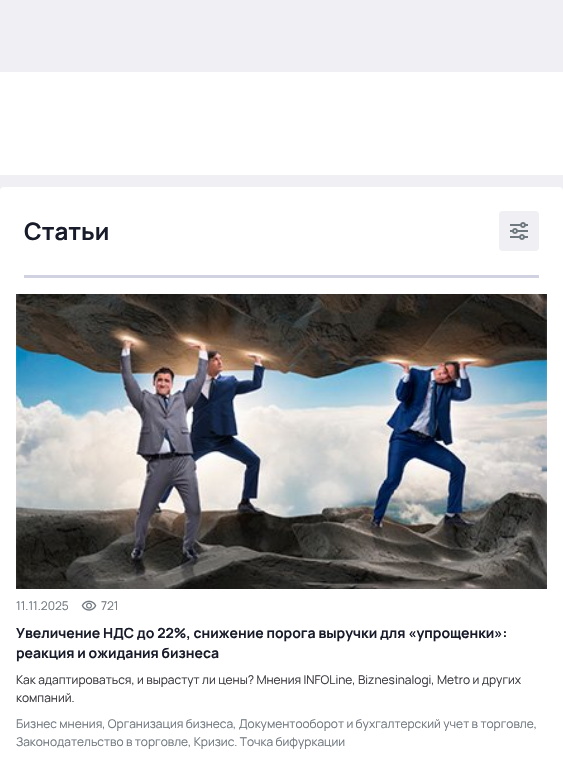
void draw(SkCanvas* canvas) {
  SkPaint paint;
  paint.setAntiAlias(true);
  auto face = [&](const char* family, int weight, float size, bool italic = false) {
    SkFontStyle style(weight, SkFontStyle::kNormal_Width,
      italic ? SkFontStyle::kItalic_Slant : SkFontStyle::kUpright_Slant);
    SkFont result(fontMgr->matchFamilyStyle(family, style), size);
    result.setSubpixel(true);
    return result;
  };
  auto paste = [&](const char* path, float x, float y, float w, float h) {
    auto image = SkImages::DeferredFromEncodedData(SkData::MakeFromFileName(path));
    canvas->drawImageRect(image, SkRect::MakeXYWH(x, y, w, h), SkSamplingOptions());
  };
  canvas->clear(0xffefeff4);
  paint.setColor(0xffffffff);
  canvas->drawRect(SkRect::MakeXYWH(0, 72, 563, 103), paint);
  canvas->drawRoundRect(SkRect::MakeXYWH(0, 187, 563, 99), 4, 4, paint);
  paint.setColor(0xffefeff4);
  canvas->drawRoundRect(SkRect::MakeXYWH(499, 211, 40, 40), 4, 4, paint);
  paste("img/1.png", 510, 222, 18, 18);
  paint.setColor(0xffd0d2e2);
  canvas->drawRect(SkRect::MakeXYWH(24, 275, 515, 3), paint);
  paint.setColor(0xffffffff);
  canvas->drawRoundRect(SkRect::MakeXYWH(0, 278, 563, 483), 4, 4, paint);
  paste("img/2.png", 16, 294, 531, 295);
  paste("img/3.png", 81, 600, 16, 11);
  auto f0 = face("Manrope", 700, 24);
  paint.setColor(0xff181b29);
  canvas->drawString("Статьи", 24, 240, f0, paint);
  auto f1 = face("Manrope", 400, 12);
  paint.setColor(0xff717980);
  canvas->drawString("11.11.2025", 16, 610, f1, paint);
  canvas->drawString("721", 101, 610, f1, paint);
  auto f2 = face("Manrope", 700, 14);
  paint.setColor(0xff181b29);
  canvas->drawString("Увеличение НДС до 22%, снижение порога выручки для «упрощенки»:", 16, 638, f2, paint);
  canvas->drawString("реакция и ожидания бизнеса", 16, 658, f2, paint);
  paint.setColor(0xff3e3c42);
  canvas->drawString("Как адаптироваться, и вырастут ли цены? Мнения INFOLine, Biznesinalogi, Metro и других", 16, 684, f1, paint);
  canvas->drawString("компаний.", 16, 702, f1, paint);
  paint.setColor(0xff717980);
  canvas->drawString("Бизнес мнения, Организация бизнеса, Документооборот и бухгалтерский учет в торговле,", 16, 728, f1, paint);
  canvas->drawString("Законодательство в торговле, Кризис. Точка бифуркации", 16, 746, f1, paint);
}
